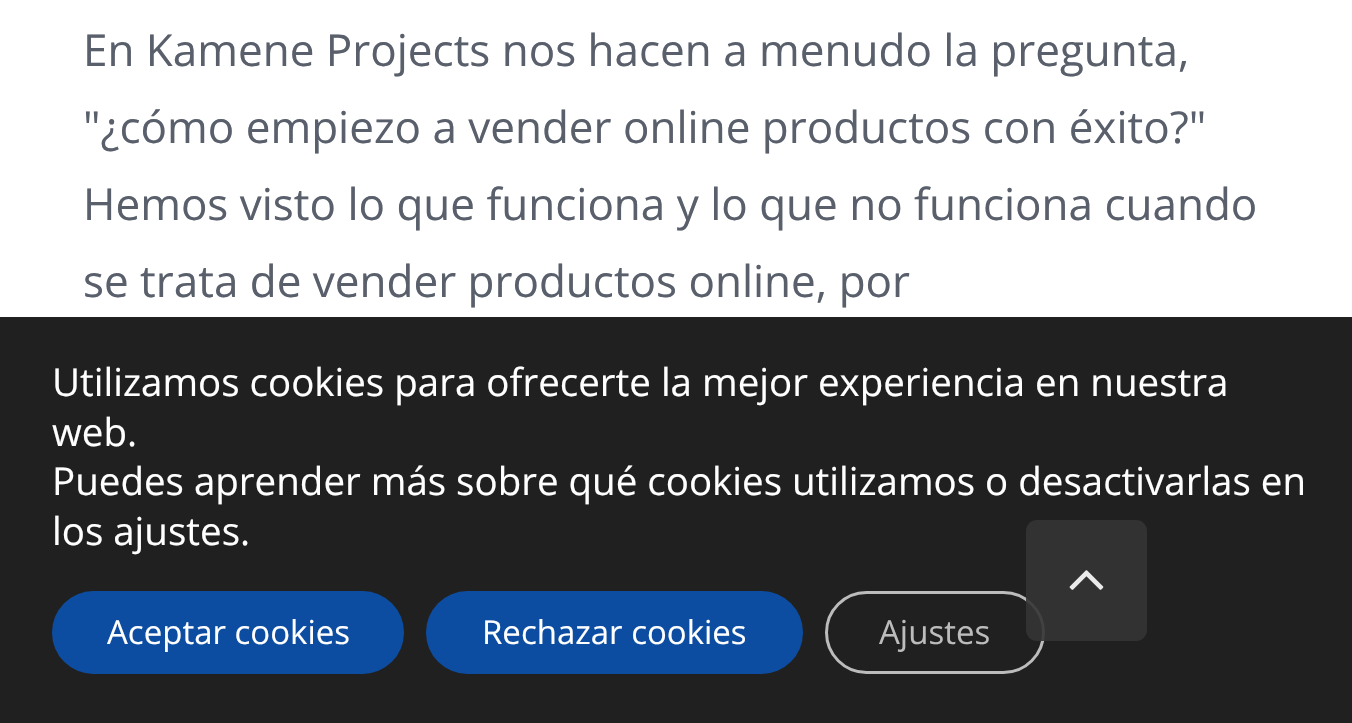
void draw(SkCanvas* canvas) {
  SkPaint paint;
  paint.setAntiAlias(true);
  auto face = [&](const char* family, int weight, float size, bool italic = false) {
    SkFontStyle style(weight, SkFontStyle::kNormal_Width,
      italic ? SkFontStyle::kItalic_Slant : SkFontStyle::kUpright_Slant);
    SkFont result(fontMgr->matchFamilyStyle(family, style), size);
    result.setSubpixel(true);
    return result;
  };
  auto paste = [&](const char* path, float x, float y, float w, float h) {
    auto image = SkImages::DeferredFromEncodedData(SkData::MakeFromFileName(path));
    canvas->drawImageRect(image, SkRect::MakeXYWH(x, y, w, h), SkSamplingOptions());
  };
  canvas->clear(0xffffffff);
  paint.setColor(0xff202020);
  canvas->drawRect(SkRect::MakeXYWH(0, 317, 1352, 406), paint);
  paint.setColor(0xff0c4da2);
  canvas->drawRoundRect(SkRect::MakeXYWH(52, 591, 352, 83), 41.5f, 41.5f, paint);
  canvas->drawRoundRect(SkRect::MakeXYWH(426, 591, 377, 83), 41.5f, 41.5f, paint);
  paint.setStroke(true);
  paint.setStrokeWidth(3);
  paint.setColor(0xffbcbcbc);
  canvas->drawRoundRect(SkRect::MakeXYWH(826.5f, 592.5f, 217, 80), 40, 40, paint);
  paint.setStroke(false);
  paint.setColor(0xe6333333);
  canvas->drawRoundRect(SkRect::MakeXYWH(1026, 520, 121, 121), 11, 11, paint);
  paste("img/1.png", 1069, 570, 35, 20);
  auto f0 = face("Open Sans", 400, 44);
  paint.setColor(0xff595f6b);
  {
    const struct { const char* s; float x, y; } items[] = {
      {"En Kamene Projects nos hacen a menudo la pregunta,", 83, 66},
      {"\"¿cómo empiezo a vender online productos con éxito?\"", 83, 143},
      {"Hemos visto lo que funciona y lo que no funciona cuando", 83, 220},
      {"se trata de vender productos online, por", 83, 297},
    };
    for (auto [s, x, y] : items) {
      canvas->drawString(s, x, y, f0, paint);
    }
  }
  auto f1 = face("Open Sans", 400, 38.5f);
  paint.setColor(0xffffffff);
  {
    const struct { const char* s; float x, y; } items[] = {
      {"Utilizamos cookies para ofrecerte la mejor experiencia en nuestra", 52, 396},
      {"web.", 52, 446},
      {"Puedes aprender más sobre qué cookies utilizamos o desactivarlas en", 52, 495},
      {"los ajustes.", 52, 545},
    };
    for (auto [s, x, y] : items) {
      canvas->drawString(s, x, y, f1, paint);
    }
  }
  auto f2 = face("Open Sans", 400, 33);
  canvas->drawString("Aceptar cookies", 107, 644, f2, paint);
  canvas->drawString("Rechazar cookies", 482, 644, f2, paint);
  paint.setColor(0xffbcbcbc);
  canvas->drawString("Ajustes", 879, 644, f2, paint);
}
